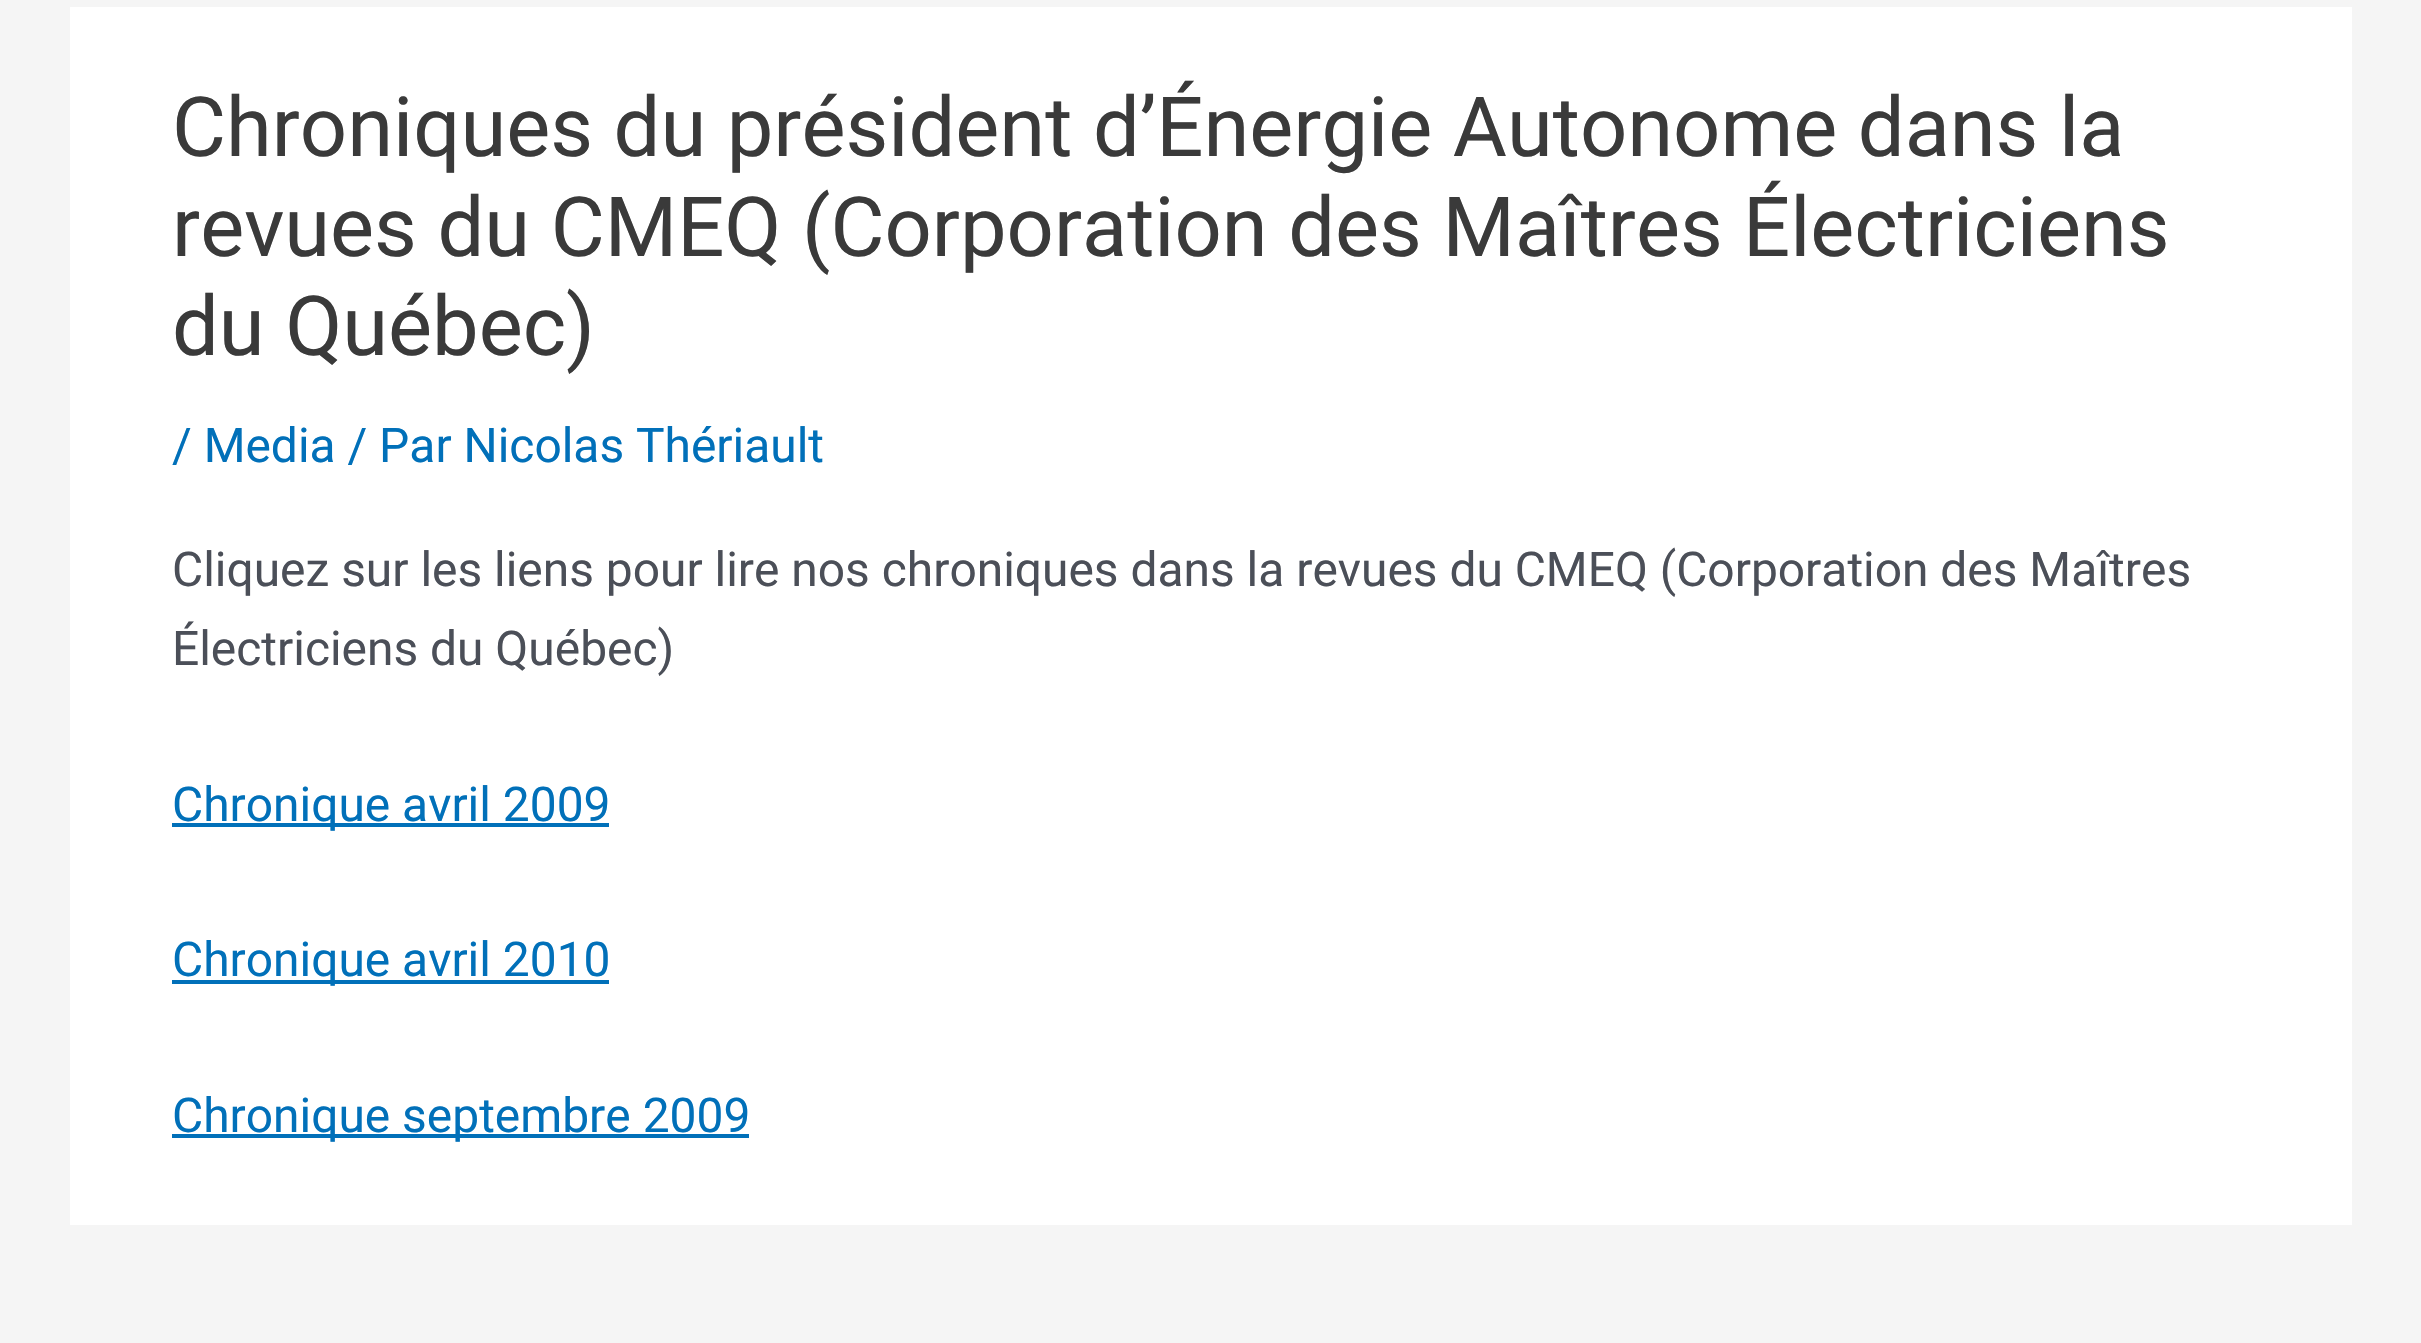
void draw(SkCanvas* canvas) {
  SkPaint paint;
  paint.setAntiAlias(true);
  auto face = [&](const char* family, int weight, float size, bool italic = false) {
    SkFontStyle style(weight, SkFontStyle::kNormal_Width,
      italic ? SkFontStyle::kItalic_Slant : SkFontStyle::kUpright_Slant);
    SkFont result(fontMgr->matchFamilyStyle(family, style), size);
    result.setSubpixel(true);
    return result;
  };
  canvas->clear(0xfff5f5f5);
  {
    const struct { float x, y, w, h; SkColor color; } items[] = {
      {70, 7, 2282, 1218, 0xffffffff},
      {172, 823, 437, 4, 0xff0170b9},
      {172, 980, 437, 4, 0xff0170b9},
      {172, 1134, 577, 4, 0xff0170b9},
    };
    for (auto [x, y, w, h, color] : items) {
      paint.setColor(color);
      canvas->drawRect(SkRect::MakeXYWH(x, y, w, h), paint);
    }
  }
  auto f0 = face("Roboto", 400, 83);
  paint.setColor(0xff3a3a3a);
  {
    const struct { const char* s; float x, y; } items[] = {
      {"Chroniques du président d’Énergie Autonome dans la", 172, 156},
      {"revues du CMEQ (Corporation des Maîtres", 172, 256},
      {"Électriciens", 1743, 256},
      {"du Québec)", 172, 355},
    };
    for (auto [s, x, y] : items) {
      canvas->drawString(s, x, y, f0, paint);
    }
  }
  auto f1 = face("Roboto", 400, 47.9f);
  paint.setColor(0xff0170b9);
  canvas->drawString("/ Media / Par Nicolas Thériault", 172, 462, f1, paint);
  paint.setColor(0xff4b4f58);
  canvas->drawString("Cliquez sur les liens pour lire nos chroniques dans la revues du CMEQ (Corporation des Maîtres", 172, 586, f1, paint);
  canvas->drawString("Électriciens du Québec)", 172, 665, f1, paint);
  paint.setColor(0xff0170b9);
  {
    const struct { const char* s; float x, y; } items[] = {
      {"Chronique avril 2009", 172, 821},
      {"Chronique avril 2010", 172, 976},
      {"Chronique septembre 2009", 172, 1132},
    };
    for (auto [s, x, y] : items) {
      canvas->drawString(s, x, y, f1, paint);
    }
  }
}
